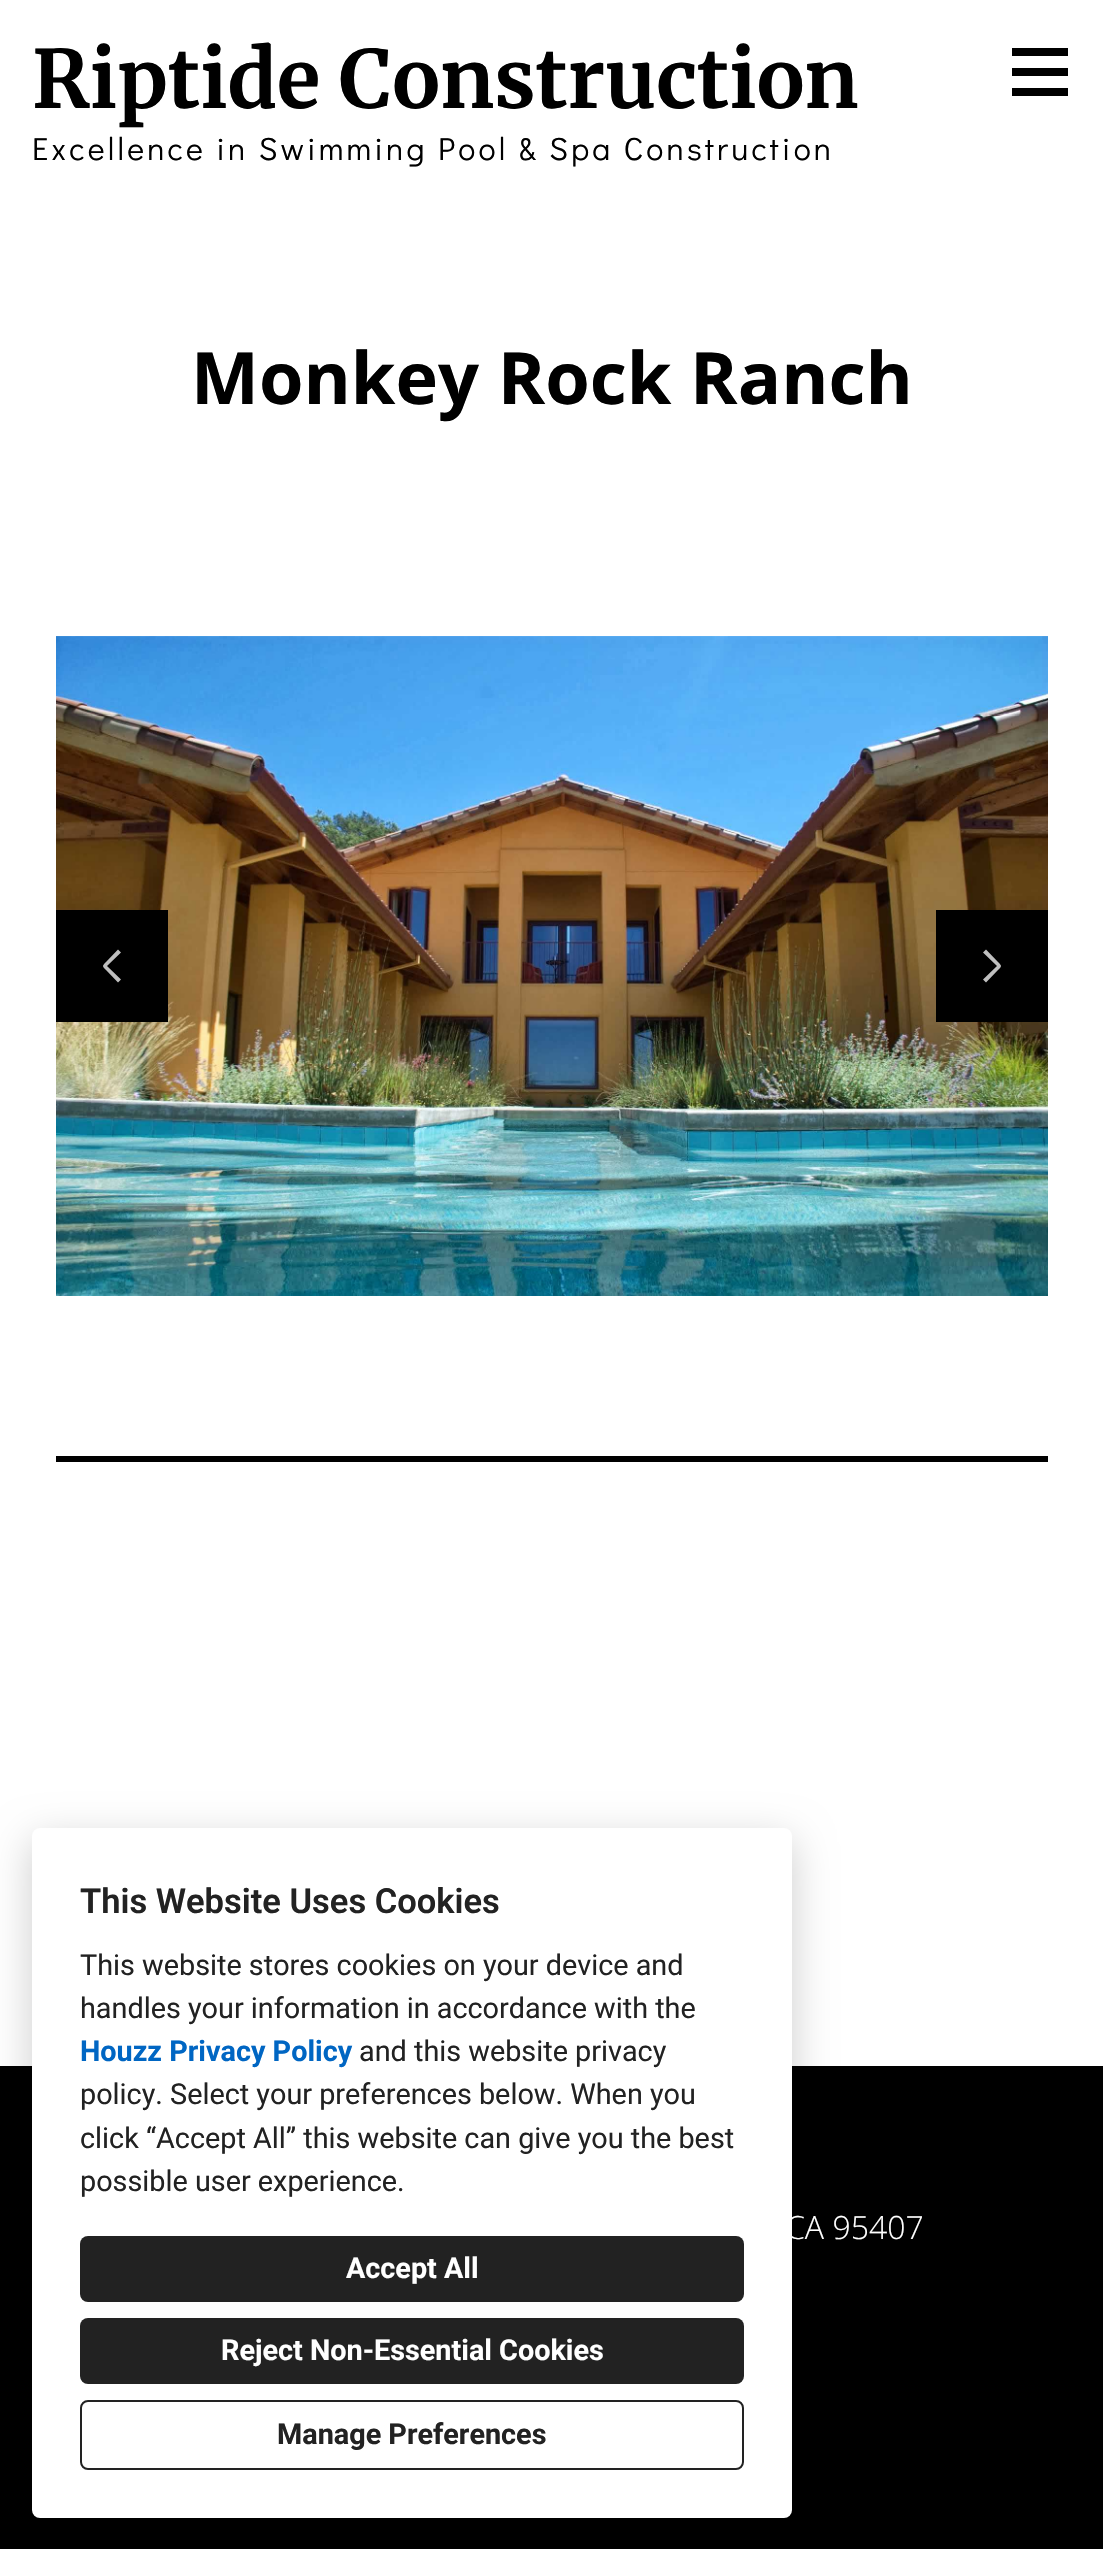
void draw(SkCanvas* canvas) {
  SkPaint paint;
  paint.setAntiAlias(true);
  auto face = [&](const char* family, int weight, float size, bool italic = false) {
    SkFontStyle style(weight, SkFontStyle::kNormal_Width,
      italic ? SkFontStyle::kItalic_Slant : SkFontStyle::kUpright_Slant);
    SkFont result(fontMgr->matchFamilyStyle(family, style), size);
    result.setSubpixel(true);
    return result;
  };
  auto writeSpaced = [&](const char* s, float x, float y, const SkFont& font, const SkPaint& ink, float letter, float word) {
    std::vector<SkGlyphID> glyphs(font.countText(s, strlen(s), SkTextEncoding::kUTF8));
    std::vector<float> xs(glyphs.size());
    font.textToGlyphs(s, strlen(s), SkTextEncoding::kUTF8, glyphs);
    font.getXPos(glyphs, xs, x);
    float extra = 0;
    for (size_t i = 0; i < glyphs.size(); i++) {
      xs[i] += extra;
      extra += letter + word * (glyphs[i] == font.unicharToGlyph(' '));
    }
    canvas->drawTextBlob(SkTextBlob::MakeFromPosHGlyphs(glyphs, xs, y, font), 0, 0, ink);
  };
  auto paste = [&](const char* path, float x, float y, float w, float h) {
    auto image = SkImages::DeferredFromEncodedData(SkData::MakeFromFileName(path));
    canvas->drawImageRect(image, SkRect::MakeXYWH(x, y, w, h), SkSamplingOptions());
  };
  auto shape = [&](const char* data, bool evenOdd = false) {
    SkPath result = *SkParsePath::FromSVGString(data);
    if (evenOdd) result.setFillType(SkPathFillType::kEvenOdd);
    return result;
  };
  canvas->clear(0xffffffff);
  paint.setColor(0xff000000);
  canvas->drawPath(shape("M1012 48V56H1068V48ZM1068 68H1012V76H1068ZM1012 96H1068V88H1012Z"), paint);
  paste("img/1.png", 56, 636, 992, 660);
  canvas->drawRect(SkRect::MakeXYWH(56, 910, 112, 112), paint);
  paint.setColor(0xffbfbfbf);
  canvas->drawPath(shape("M118 982.5L106 970C102 966 102 966 106 962L118 949.5L121 952.5L107 966L121 979.5Z"), paint);
  paint.setColor(0xff000000);
  canvas->drawRect(SkRect::MakeXYWH(936, 910, 112, 112), paint);
  paint.setColor(0xffbfbfbf);
  canvas->drawPath(shape("M986 982.5L998 970C1002 966 1002 966 998 962L986 949.5L983 952.5L997 966L983 979.5Z"), paint);
  paint.setColor(0xff000000);
  canvas->drawRect(SkRect::MakeXYWH(56, 1456, 992, 6), paint);
  canvas->drawRect(SkRect::MakeXYWH(0, 2066, 1103, 483), paint);
  paint.setColor(0x33000000);
  paint.setMaskFilter(SkMaskFilter::MakeBlur(kNormal_SkBlurStyle, 20));
  canvas->drawRoundRect(SkRect::MakeXYWH(32, 1840, 760, 690), 8, 8, paint);
  paint.setMaskFilter(nullptr);
  paint.setColor(0xffffffff);
  canvas->drawRoundRect(SkRect::MakeXYWH(32, 1828, 760, 690), 8, 8, paint);
  paint.setColor(0xff222222);
  canvas->drawRoundRect(SkRect::MakeXYWH(80, 2236, 664, 66), 8, 8, paint);
  canvas->drawRoundRect(SkRect::MakeXYWH(80, 2318, 664, 66), 8, 8, paint);
  paint.setStroke(true);
  paint.setStrokeWidth(2);
  canvas->drawRoundRect(SkRect::MakeXYWH(81, 2401, 662, 68), 7, 7, paint);
  auto f0 = face("Merriweather", 700, 80);
  paint.setStroke(false);
  paint.setColor(0xff000000);
  canvas->drawString("Riptide Construction", 32, 108, f0, paint);
  auto f1 = face("Didact Gothic", 400, 32);
  writeSpaced("Excellence in Swimming Pool & Spa Construction", 32, 160, f1, paint, 3.2f, 0);
  auto f2 = face("Open Sans", 700, 72);
  canvas->drawString("Monkey Rock Ranch", 191, 404, f2, paint);
  auto f3 = face("Open Sans", 300, 32);
  paint.setColor(0xffffffff);
  canvas->drawString("CA 95407", 785, 2239, f3, paint);
  auto f4 = face("Roboto", 600, 34.5f);
  paint.setColor(0xff222222);
  canvas->drawString("This Website Uses Cookies", 80, 1913, f4, paint);
  auto f5 = face("Roboto", 400, 28.8f);
  canvas->drawString("This website stores cookies on your device and", 80, 1975, f5, paint);
  canvas->drawString("handles your information in accordance with the", 80, 2018, f5, paint);
  auto f6 = face("Roboto", 700, 28.8f);
  paint.setColor(0xff0066c3);
  canvas->drawString("Houzz Privacy Policy", 80, 2061, f6, paint);
  paint.setColor(0xff222222);
  {
    const struct { const char* s; float x, y; } items[] = {
      {"and this website privacy", 359, 2061},
      {"policy. Select your preferences below. When you", 80, 2104},
      {"click “Accept All” this website can give you the best", 80, 2148},
      {"possible user experience.", 80, 2191},
    };
    for (auto [s, x, y] : items) {
      canvas->drawString(s, x, y, f5, paint);
    }
  }
  paint.setColor(0xffffffff);
  canvas->drawString("Accept All", 346, 2278, f6, paint);
  canvas->drawString("Reject Non-Essential Cookies", 221, 2360, f6, paint);
  paint.setColor(0xff222222);
  canvas->drawString("Manage Preferences", 277, 2444, f6, paint);
}
